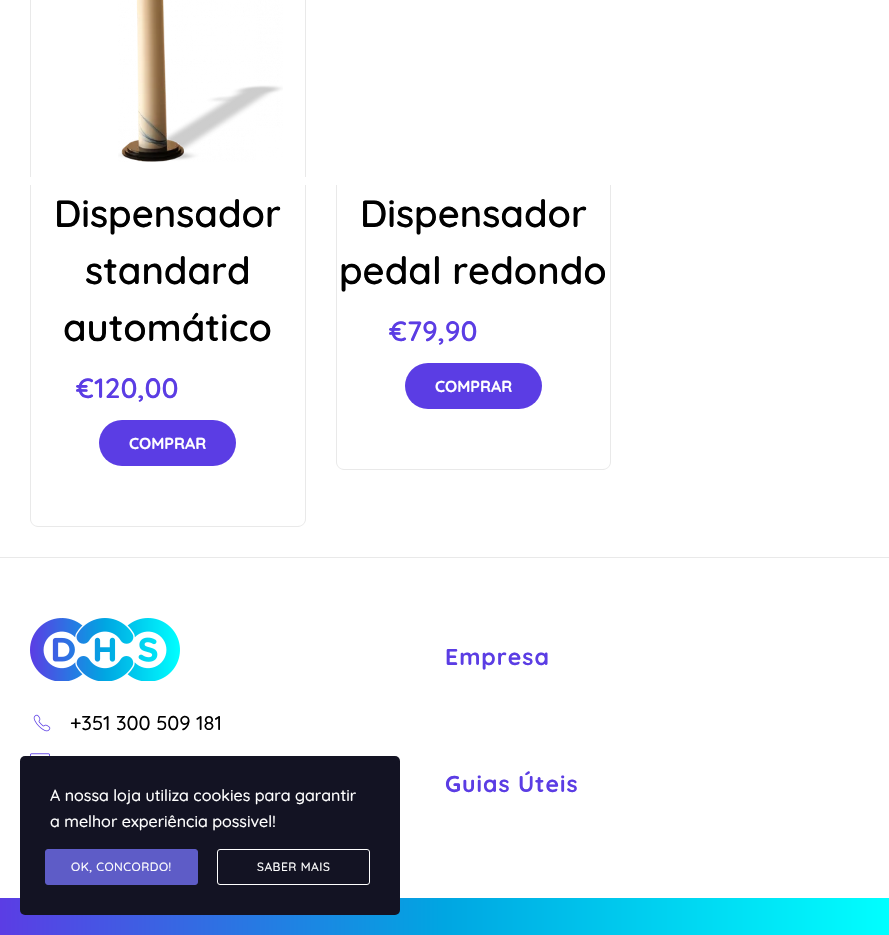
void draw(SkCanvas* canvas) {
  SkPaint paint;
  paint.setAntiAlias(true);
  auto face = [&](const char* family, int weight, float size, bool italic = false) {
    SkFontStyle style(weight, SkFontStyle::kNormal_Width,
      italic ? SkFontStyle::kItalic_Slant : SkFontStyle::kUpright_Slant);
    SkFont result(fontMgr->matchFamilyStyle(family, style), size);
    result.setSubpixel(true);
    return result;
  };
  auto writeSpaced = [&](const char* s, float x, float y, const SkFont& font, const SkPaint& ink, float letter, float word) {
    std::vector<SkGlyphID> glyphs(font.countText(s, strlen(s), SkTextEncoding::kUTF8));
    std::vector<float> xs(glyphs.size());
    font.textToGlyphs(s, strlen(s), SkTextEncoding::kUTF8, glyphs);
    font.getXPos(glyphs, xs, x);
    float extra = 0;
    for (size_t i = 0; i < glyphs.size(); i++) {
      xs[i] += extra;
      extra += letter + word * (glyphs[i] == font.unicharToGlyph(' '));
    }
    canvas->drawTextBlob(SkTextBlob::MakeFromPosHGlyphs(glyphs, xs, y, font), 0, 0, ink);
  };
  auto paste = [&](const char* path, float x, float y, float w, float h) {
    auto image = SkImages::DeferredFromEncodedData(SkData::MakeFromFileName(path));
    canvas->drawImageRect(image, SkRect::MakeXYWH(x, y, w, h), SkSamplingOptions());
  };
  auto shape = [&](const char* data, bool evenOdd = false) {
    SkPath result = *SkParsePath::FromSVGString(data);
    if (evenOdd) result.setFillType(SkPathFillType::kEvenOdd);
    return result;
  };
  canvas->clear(0xffffffff);
  paint.setColor(0xffe9e9e9);
  canvas->drawPath(shape("M38-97H298C302-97 306-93 306-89V177H30V-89C30-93 34-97 38-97ZM38-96H298C302-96 305-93 305-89V177H31V-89C31-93 34-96 38-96Z", true), paint);
  paste("img/1.png", 118, 0, 165, 162);
  canvas->drawPath(shape("M30 185H306V519C306 523 302 527 298 527H38C34 527 30 523 30 519ZM31 185H305V519C305 523 302 526 298 526H38C34 526 31 523 31 519Z", true), paint);
  paint.setColor(0xff5b3de4);
  canvas->drawRoundRect(SkRect::MakeXYWH(99, 420, 137, 46), 23, 23, paint);
  paint.setColor(0xffe9e9e9);
  canvas->drawPath(shape("M336 185H611V462C611 466 607 470 603 470H344C340 470 336 466 336 462ZM337 185H610V462C610 466 607 469 603 469H344C340 469 337 466 337 462Z", true), paint);
  paint.setColor(0xff5b3de4);
  canvas->drawRoundRect(SkRect::MakeXYWH(405, 363, 137, 46), 23, 23, paint);
  paint.setColor(0xffe9e9e9);
  canvas->drawRect(SkRect::MakeXYWH(0, 557, 889, 1), paint);
  paste("img/2.png", 30, 618, 150, 63);
  paste("img/3.png", 33, 714, 18, 18);
  paste("img/4.png", 30, 753, 20, 3);
  {
    const SkColor colors[] = {0xff5b3de4, 0xff00a6e2, 0xff00ffff};
    const float stops[] = {0, 0.5f, 1};
    const SkPoint ends[] = {{0, 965}, {889, 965}};
    paint.setShader(SkGradientShader::MakeLinear(ends, colors, stops, 3, SkTileMode::kClamp));
    paint.setAlpha(255);
  }
  canvas->drawRect(SkRect::MakeXYWH(0, 898, 889, 37), paint);
  paint.setShader(nullptr);
  paint.setColor(0xff131323);
  canvas->drawRoundRect(SkRect::MakeXYWH(20, 756, 380, 159), 5, 5, paint);
  paint.setColor(0xff5e5cc7);
  canvas->drawRoundRect(SkRect::MakeXYWH(45.5f, 849.5f, 152, 35), 2.5f, 2.5f, paint);
  paint.setStroke(true);
  paint.setStrokeWidth(1);
  canvas->drawRoundRect(SkRect::MakeXYWH(45.5f, 849.5f, 152, 35), 2.5f, 2.5f, paint);
  paint.setColor(0xffffffff);
  canvas->drawRoundRect(SkRect::MakeXYWH(217.5f, 849.5f, 152, 35), 2.5f, 2.5f, paint);
  auto f0 = face("Quicksand", 600, 38);
  paint.setStroke(false);
  paint.setColor(0xff000000);
  {
    const struct { const char* s; float x, y; } items[] = {
      {"Dispensador", 54, 227},
      {"standard", 85, 284},
      {"automático", 63, 341},
    };
    for (auto [s, x, y] : items) {
      canvas->drawString(s, x, y, f0, paint);
    }
  }
  auto f1 = face("Quicksand", 600, 28);
  paint.setColor(0xff5b3de4);
  canvas->drawString("€120,00", 76, 398, f1, paint);
  auto f2 = face("Quicksand", 700, 16);
  paint.setColor(0xffffffff);
  canvas->drawString("COMPRAR", 129, 449, f2, paint);
  paint.setColor(0xff000000);
  canvas->drawString("Dispensador", 360, 227, f0, paint);
  canvas->drawString("pedal redondo", 339, 284, f0, paint);
  paint.setColor(0xff5b3de4);
  canvas->drawString("€79,90", 389, 341, f1, paint);
  paint.setColor(0xffffffff);
  canvas->drawString("COMPRAR", 435, 392, f2, paint);
  auto f3 = face("Quicksand", 700, 23);
  paint.setColor(0xff5b3de4);
  writeSpaced("Empresa", 445, 665, f3, paint, 1, 0);
  auto f4 = face("Quicksand", 500, 20);
  paint.setColor(0xff000000);
  canvas->drawString("+351 300 509 181", 70, 730, f4, paint);
  paint.setColor(0xff5b3de4);
  writeSpaced("Guias Úteis", 445, 792, f3, paint, 1, 0);
  auto f5 = face("Quicksand", 500, 16);
  paint.setColor(0xffffffff);
  canvas->drawString("A nossa loja utiliza cookies para garantir", 50, 801, f5, paint);
  canvas->drawString("a melhor experiência possivel!", 50, 827, f5, paint);
  auto f6 = face("Quicksand", 500, 12);
  writeSpaced("OK, CONCORDO!", 71, 871, f6, paint, 0.5f, 0);
  writeSpaced("SABER MAIS", 257, 871, f6, paint, 0.5f, 0);
}
